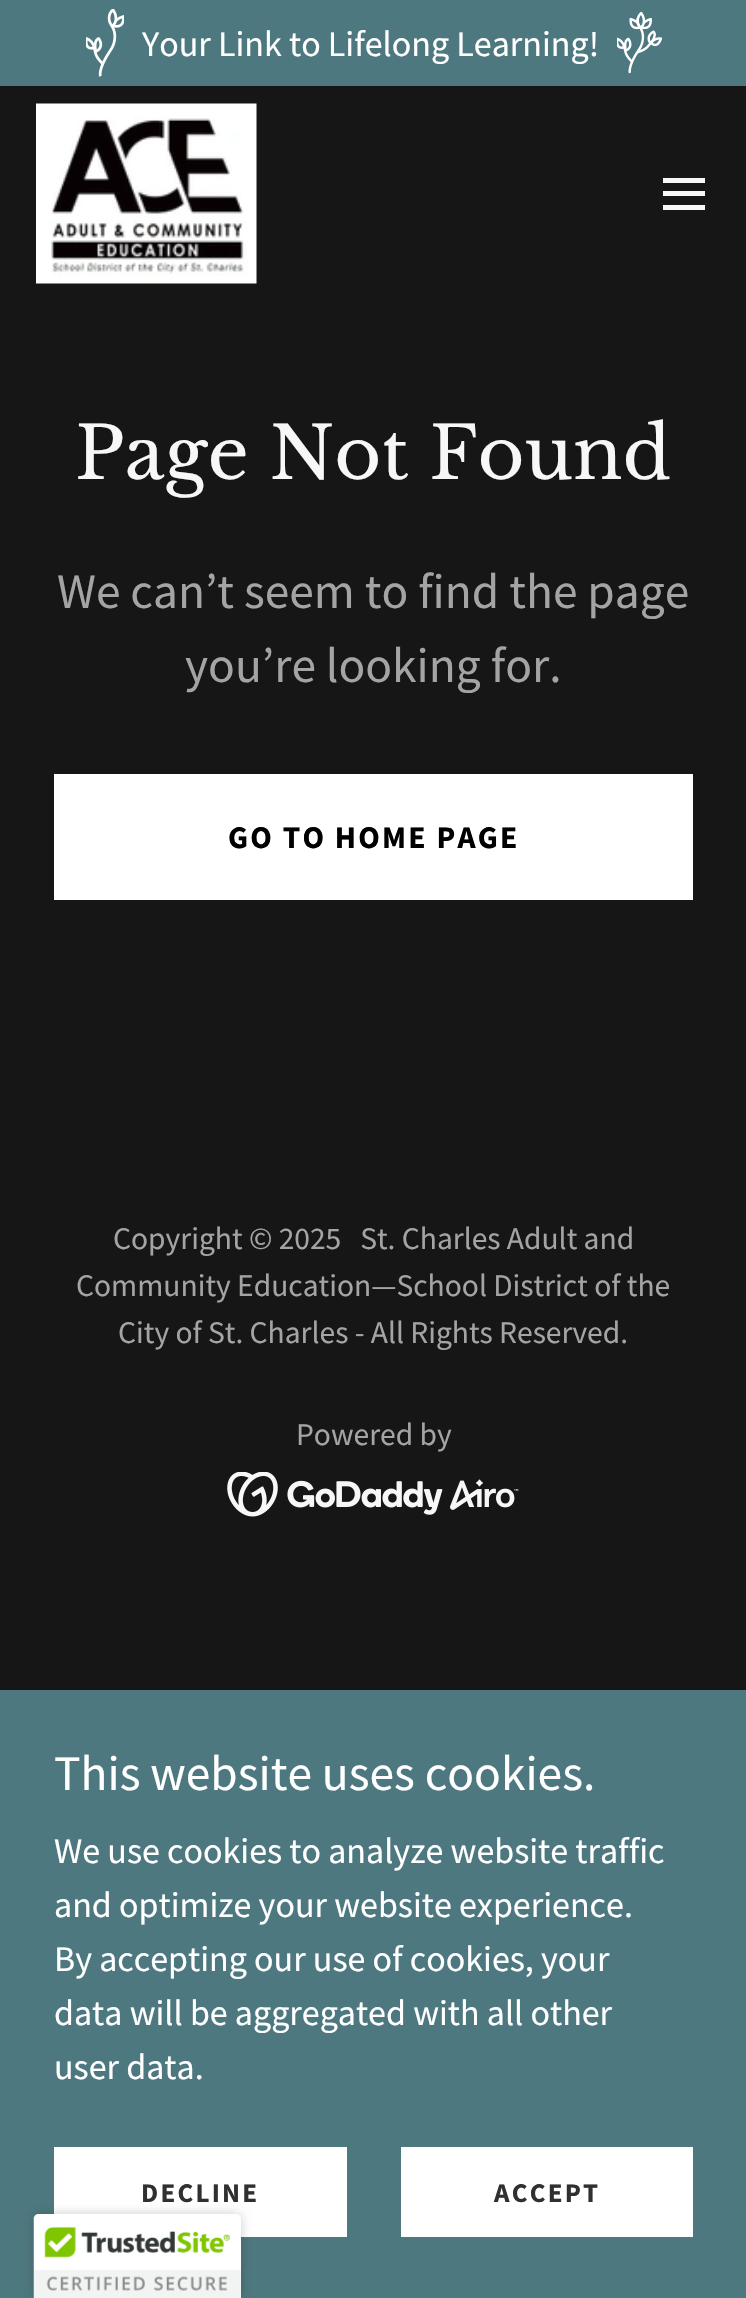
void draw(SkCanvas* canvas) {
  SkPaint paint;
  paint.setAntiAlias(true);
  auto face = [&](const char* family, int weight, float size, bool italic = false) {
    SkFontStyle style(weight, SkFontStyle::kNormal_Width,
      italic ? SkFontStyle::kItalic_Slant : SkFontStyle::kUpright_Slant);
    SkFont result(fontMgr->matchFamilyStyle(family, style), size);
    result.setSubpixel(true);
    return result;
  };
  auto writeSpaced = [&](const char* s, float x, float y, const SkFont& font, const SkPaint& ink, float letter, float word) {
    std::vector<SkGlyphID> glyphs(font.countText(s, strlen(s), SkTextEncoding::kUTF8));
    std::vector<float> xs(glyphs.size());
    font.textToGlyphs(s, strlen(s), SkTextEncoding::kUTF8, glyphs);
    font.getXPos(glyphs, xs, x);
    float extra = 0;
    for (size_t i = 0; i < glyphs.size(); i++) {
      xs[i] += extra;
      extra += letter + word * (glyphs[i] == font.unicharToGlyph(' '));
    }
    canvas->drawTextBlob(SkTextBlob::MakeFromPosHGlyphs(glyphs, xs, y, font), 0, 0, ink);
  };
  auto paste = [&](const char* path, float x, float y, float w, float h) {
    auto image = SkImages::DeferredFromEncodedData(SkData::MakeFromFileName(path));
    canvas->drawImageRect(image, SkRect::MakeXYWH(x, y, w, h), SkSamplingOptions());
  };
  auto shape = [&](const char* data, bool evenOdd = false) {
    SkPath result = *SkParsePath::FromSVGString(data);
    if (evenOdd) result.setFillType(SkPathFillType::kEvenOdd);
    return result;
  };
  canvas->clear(0xff161616);
  paint.setColor(0xff4e787f);
  canvas->drawRect(SkRect::MakeXYWH(0, 0, 746, 86), paint);
  paste("img/1.png", 86, 9, 38, 68);
  paste("img/2.png", 617, 11, 45, 63);
  paste("img/3.png", 36, 103, 221, 181);
  {
    const struct { float x, y, w, h; SkColor color; } items[] = {
      {663, 178, 42, 5, 0xfff7f7f7},
      {663, 191, 42, 5, 0xfff7f7f7},
      {663, 205, 42, 5, 0xfff7f7f7},
      {54, 774, 639, 126, 0xffffffff},
    };
    for (auto [x, y, w, h, color] : items) {
      paint.setColor(color);
      canvas->drawRect(SkRect::MakeXYWH(x, y, w, h), paint);
    }
  }
  paste("img/4.png", 227, 1472, 292, 45);
  {
    const struct { float x, y, w, h; SkColor color; } items[] = {
      {0, 1690, 746, 608, 0xff4e787f},
      {54, 2147, 293, 90, 0xffffffff},
      {401, 2147, 292, 90, 0xffffffff},
    };
    for (auto [x, y, w, h, color] : items) {
      paint.setColor(color);
      canvas->drawRect(SkRect::MakeXYWH(x, y, w, h), paint);
    }
  }
  paint.setColor(0x33000000);
  paint.setMaskFilter(SkMaskFilter::MakeBlur(kNormal_SkBlurStyle, 5.5f));
  canvas->drawRoundRect(SkRect::MakeXYWH(34, 2214, 207, 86), 5, 5, paint);
  paint.setMaskFilter(nullptr);
  paint.setColor(0xffffffff);
  canvas->drawPath(shape("M39 2214H236C239 2214 241 2216 241 2219V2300H34V2219C34 2216 36 2214 39 2214Z"), paint);
  paste("img/5.png", 33, 2214, 208, 84);
  auto f0 = face("Source Sans Pro", 400, 36);
  canvas->drawString("Your Link to Lifelong Learning!", 142, 56, f0, paint);
  auto f1 = face("Libre Baskerville", 400, 72);
  paint.setColor(0xfff7f7f7);
  canvas->drawString("Page Not Found", 75, 479, f1, paint);
  auto f2 = face("Source Sans Pro", 400, 49.5f);
  paint.setColor(0xffa4a4a4);
  canvas->drawString("We can’t seem to find the page", 57, 608, f2, paint);
  canvas->drawString("you’re looking for.", 185, 682, f2, paint);
  auto f3 = face("Source Sans Pro", 700, 31.5f);
  paint.setColor(0xff000000);
  writeSpaced("GO TO HOME PAGE", 228, 848, f3, paint, 2.25f, 0);
  auto f4 = face("Source Sans Pro", 400, 31.5f);
  paint.setColor(0xffa4a4a4);
  {
    const struct { const char* s; float x, y; } items[] = {
      {"Copyright © 2025   St. Charles Adult and", 113, 1249},
      {"Community Education—School District of the", 76, 1296},
      {"City of St. Charles - All Rights Reserved.", 118, 1343},
      {"Powered by", 296, 1445},
    };
    for (auto [s, x, y] : items) {
      canvas->drawString(s, x, y, f4, paint);
    }
  }
  paint.setColor(0xffffffff);
  canvas->drawString("This website uses cookies.", 54, 1790, f2, paint);
  {
    const struct { const char* s; float x, y; } items[] = {
      {"We use cookies to analyze website traffic", 54, 1863},
      {"and optimize your website experience.", 54, 1917},
      {"By accepting our use of cookies, your", 54, 1971},
      {"data will be aggregated with all other", 54, 2025},
      {"user data.", 54, 2079},
    };
    for (auto [s, x, y] : items) {
      canvas->drawString(s, x, y, f0, paint);
    }
  }
  auto f5 = face("Source Sans Pro", 700, 27);
  paint.setColor(0xff303030);
  writeSpaced("DECLINE", 141, 2202, f5, paint, 2.25f, 0);
  writeSpaced("ACCEPT", 494, 2202, f5, paint, 2.25f, 0);
}
